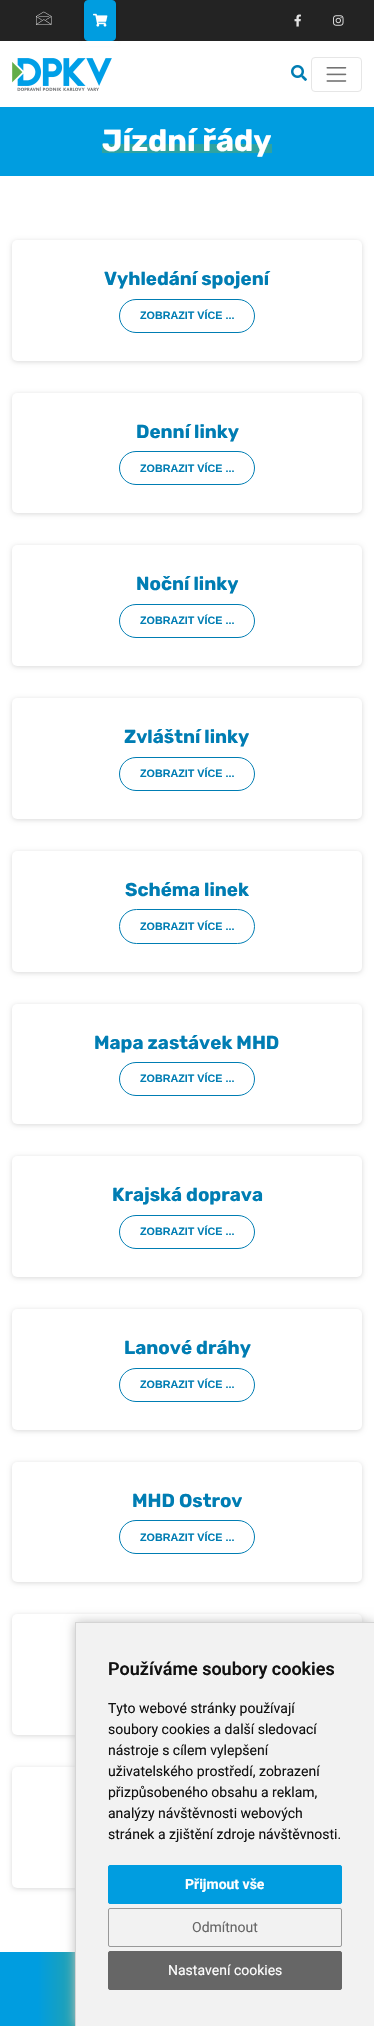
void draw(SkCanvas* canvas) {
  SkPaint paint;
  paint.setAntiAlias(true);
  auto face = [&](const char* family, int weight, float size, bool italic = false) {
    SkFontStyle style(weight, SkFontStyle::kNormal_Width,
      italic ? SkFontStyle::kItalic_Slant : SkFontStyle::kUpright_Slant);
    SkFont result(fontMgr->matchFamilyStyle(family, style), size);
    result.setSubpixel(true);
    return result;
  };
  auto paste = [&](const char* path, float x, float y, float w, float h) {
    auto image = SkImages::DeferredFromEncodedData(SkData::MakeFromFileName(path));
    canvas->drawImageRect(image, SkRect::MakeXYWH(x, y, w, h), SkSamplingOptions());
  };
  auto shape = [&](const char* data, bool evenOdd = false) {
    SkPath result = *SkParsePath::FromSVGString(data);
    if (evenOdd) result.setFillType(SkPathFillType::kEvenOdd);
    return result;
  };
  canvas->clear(0xffffffff);
  paint.setColor(0xff232323);
  canvas->drawRect(SkRect::MakeXYWH(0, 0, 374, 41), paint);
  paste("img/1.png", 36, 11, 16, 14);
  paint.setColor(0x26000000);
  paint.setMaskFilter(SkMaskFilter::MakeBlur(kNormal_SkBlurStyle, 2.5f));
  canvas->drawRoundRect(SkRect::MakeXYWH(84, 1, 32, 41), 4, 4, paint);
  paint.setMaskFilter(nullptr);
  paint.setColor(0xff009de0);
  canvas->drawRoundRect(SkRect::MakeXYWH(84.5f, 0.5f, 31, 40), 3.5f, 3.5f, paint);
  paint.setStroke(true);
  paint.setStrokeWidth(1);
  canvas->drawRoundRect(SkRect::MakeXYWH(84.5f, 0.5f, 31, 40), 3.5f, 3.5f, paint);
  paste("img/2.png", 93, 13, 15, 14);
  paste("img/3.png", 294, 14, 7, 13);
  paste("img/4.png", 333, 15, 11, 11);
  paint.setStroke(false);
  paint.setColor(0xffffffff);
  canvas->drawRect(SkRect::MakeXYWH(82, 41, 36, 5), paint);
  paste("img/5.png", 12, 58, 100, 33);
  paste("img/6.png", 291, 65, 16, 16);
  paint.setStroke(true);
  paint.setColor(0xffe6e6e6);
  canvas->drawRoundRect(SkRect::MakeXYWH(311.5f, 57.5f, 50, 34), 3.5f, 3.5f, paint);
  paste("img/7.png", 326, 67, 21, 15);
  paint.setStroke(false);
  paint.setColor(0xff009de0);
  canvas->drawRect(SkRect::MakeXYWH(0, 107, 374, 69), paint);
  paint.setColor(0xff2fa3a0);
  canvas->drawRect(SkRect::MakeXYWH(102, 144, 170, 9), paint);
  paint.setColor(0x26000000);
  paint.setMaskFilter(SkMaskFilter::MakeBlur(kNormal_SkBlurStyle, 2.5f));
  canvas->drawRoundRect(SkRect::MakeXYWH(12, 241, 350, 121), 5, 5, paint);
  paint.setMaskFilter(nullptr);
  paint.setColor(0xffffffff);
  canvas->drawRoundRect(SkRect::MakeXYWH(12, 240, 350, 121), 5, 5, paint);
  paint.setStroke(true);
  paint.setColor(0xff007db3);
  canvas->drawRoundRect(SkRect::MakeXYWH(119.5f, 299.5f, 135, 33), 16.5f, 16.5f, paint);
  paint.setStroke(false);
  paint.setColor(0x26000000);
  paint.setMaskFilter(SkMaskFilter::MakeBlur(kNormal_SkBlurStyle, 2.5f));
  canvas->drawRoundRect(SkRect::MakeXYWH(12, 394, 350, 120), 5, 5, paint);
  paint.setMaskFilter(nullptr);
  paint.setColor(0xffffffff);
  canvas->drawRoundRect(SkRect::MakeXYWH(12, 393, 350, 120), 5, 5, paint);
  paint.setStroke(true);
  paint.setColor(0xff007db3);
  canvas->drawRoundRect(SkRect::MakeXYWH(119.5f, 451.5f, 135, 33), 16.5f, 16.5f, paint);
  paint.setStroke(false);
  paint.setColor(0x26000000);
  paint.setMaskFilter(SkMaskFilter::MakeBlur(kNormal_SkBlurStyle, 2.5f));
  canvas->drawRoundRect(SkRect::MakeXYWH(12, 546, 350, 121), 5, 5, paint);
  paint.setMaskFilter(nullptr);
  paint.setColor(0xffffffff);
  canvas->drawRoundRect(SkRect::MakeXYWH(12, 545, 350, 121), 5, 5, paint);
  paint.setStroke(true);
  paint.setColor(0xff007db3);
  canvas->drawRoundRect(SkRect::MakeXYWH(119.5f, 604.5f, 135, 33), 16.5f, 16.5f, paint);
  paint.setStroke(false);
  paint.setColor(0x26000000);
  paint.setMaskFilter(SkMaskFilter::MakeBlur(kNormal_SkBlurStyle, 2.5f));
  canvas->drawRoundRect(SkRect::MakeXYWH(12, 699, 350, 121), 5, 5, paint);
  paint.setMaskFilter(nullptr);
  paint.setColor(0xffffffff);
  canvas->drawRoundRect(SkRect::MakeXYWH(12, 698, 350, 121), 5, 5, paint);
  paint.setStroke(true);
  paint.setColor(0xff007db3);
  canvas->drawRoundRect(SkRect::MakeXYWH(119.5f, 757.5f, 135, 33), 16.5f, 16.5f, paint);
  paint.setStroke(false);
  paint.setColor(0x26000000);
  paint.setMaskFilter(SkMaskFilter::MakeBlur(kNormal_SkBlurStyle, 2.5f));
  canvas->drawRoundRect(SkRect::MakeXYWH(12, 852, 350, 121), 5, 5, paint);
  paint.setMaskFilter(nullptr);
  paint.setColor(0xffffffff);
  canvas->drawRoundRect(SkRect::MakeXYWH(12, 851, 350, 121), 5, 5, paint);
  paint.setStroke(true);
  paint.setColor(0xff007db3);
  canvas->drawRoundRect(SkRect::MakeXYWH(119.5f, 909.5f, 135, 34), 17, 17, paint);
  paint.setStroke(false);
  paint.setColor(0x26000000);
  paint.setMaskFilter(SkMaskFilter::MakeBlur(kNormal_SkBlurStyle, 2.5f));
  canvas->drawRoundRect(SkRect::MakeXYWH(12, 1005, 350, 120), 5, 5, paint);
  paint.setMaskFilter(nullptr);
  paint.setColor(0xffffffff);
  canvas->drawRoundRect(SkRect::MakeXYWH(12, 1004, 350, 120), 5, 5, paint);
  paint.setStroke(true);
  paint.setColor(0xff007db3);
  canvas->drawRoundRect(SkRect::MakeXYWH(119.5f, 1062.5f, 135, 33), 16.5f, 16.5f, paint);
  paint.setStroke(false);
  paint.setColor(0x26000000);
  paint.setMaskFilter(SkMaskFilter::MakeBlur(kNormal_SkBlurStyle, 2.5f));
  canvas->drawRoundRect(SkRect::MakeXYWH(12, 1157, 350, 121), 5, 5, paint);
  paint.setMaskFilter(nullptr);
  paint.setColor(0xffffffff);
  canvas->drawRoundRect(SkRect::MakeXYWH(12, 1156, 350, 121), 5, 5, paint);
  paint.setStroke(true);
  paint.setColor(0xff007db3);
  canvas->drawRoundRect(SkRect::MakeXYWH(119.5f, 1215.5f, 135, 33), 16.5f, 16.5f, paint);
  paint.setStroke(false);
  paint.setColor(0x26000000);
  paint.setMaskFilter(SkMaskFilter::MakeBlur(kNormal_SkBlurStyle, 2.5f));
  canvas->drawRoundRect(SkRect::MakeXYWH(12, 1310, 350, 121), 5, 5, paint);
  paint.setMaskFilter(nullptr);
  paint.setColor(0xffffffff);
  canvas->drawRoundRect(SkRect::MakeXYWH(12, 1309, 350, 121), 5, 5, paint);
  paint.setStroke(true);
  paint.setColor(0xff007db3);
  canvas->drawRoundRect(SkRect::MakeXYWH(119.5f, 1368.5f, 135, 33), 16.5f, 16.5f, paint);
  paint.setStroke(false);
  paint.setColor(0x26000000);
  paint.setMaskFilter(SkMaskFilter::MakeBlur(kNormal_SkBlurStyle, 2.5f));
  canvas->drawRoundRect(SkRect::MakeXYWH(12, 1463, 350, 120), 5, 5, paint);
  paint.setMaskFilter(nullptr);
  paint.setColor(0xffffffff);
  canvas->drawRoundRect(SkRect::MakeXYWH(12, 1462, 350, 120), 5, 5, paint);
  paint.setStroke(true);
  paint.setColor(0xff007db3);
  canvas->drawRoundRect(SkRect::MakeXYWH(119.5f, 1520.5f, 135, 33), 16.5f, 16.5f, paint);
  paint.setStroke(false);
  paint.setColor(0x26000000);
  paint.setMaskFilter(SkMaskFilter::MakeBlur(kNormal_SkBlurStyle, 2.5f));
  canvas->drawRoundRect(SkRect::MakeXYWH(12, 1615, 350, 121), 5, 5, paint);
  paint.setMaskFilter(nullptr);
  paint.setColor(0xffffffff);
  canvas->drawRoundRect(SkRect::MakeXYWH(12, 1614, 350, 121), 5, 5, paint);
  paint.setColor(0x26000000);
  paint.setMaskFilter(SkMaskFilter::MakeBlur(kNormal_SkBlurStyle, 2.5f));
  canvas->drawRoundRect(SkRect::MakeXYWH(12, 1768, 350, 121), 5, 5, paint);
  paint.setMaskFilter(nullptr);
  paint.setColor(0xffffffff);
  canvas->drawRoundRect(SkRect::MakeXYWH(12, 1767, 350, 121), 5, 5, paint);
  {
    const SkColor colors[] = {0xff009de0, 0xff75ad40};
    const float stops[] = {0.1f, 0.43f};
    const SkPoint ends[] = {{0, 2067}, {374, 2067}};
    paint.setShader(SkGradientShader::MakeLinear(ends, colors, stops, 2, SkTileMode::kClamp));
    paint.setAlpha(255);
  }
  canvas->drawRect(SkRect::MakeXYWH(0, 1952, 75, 74), paint);
  paint.setShader(nullptr);
  paint.setColor(0xffc0c0c0);
  paint.setMaskFilter(SkMaskFilter::MakeBlur(kNormal_SkBlurStyle, 5));
  canvas->drawRect(SkRect::MakeXYWH(75, 1622, 299, 404), paint);
  paint.setMaskFilter(nullptr);
  paint.setColor(0xfff2f2f2);
  canvas->drawRect(SkRect::MakeXYWH(75, 1622, 299, 404), paint);
  paint.setColor(0xffd4d4d4);
  canvas->drawPath(shape("M75 1622H374V1623H76Z"), paint);
  paint.setColor(0x1f000000);
  canvas->drawPath(shape("M75 2026V1622L76 1623V2026Z"), paint);
  paint.setColor(0xff009de0);
  canvas->drawRoundRect(SkRect::MakeXYWH(108.5f, 1865.5f, 233, 38), 1.5f, 1.5f, paint);
  paint.setStroke(true);
  canvas->drawRoundRect(SkRect::MakeXYWH(108.5f, 1865.5f, 233, 38), 1.5f, 1.5f, paint);
  paint.setColor(0xff999999);
  canvas->drawRoundRect(SkRect::MakeXYWH(108.5f, 1908.5f, 233, 38), 1.5f, 1.5f, paint);
  paint.setStroke(false);
  paint.setColor(0xff666666);
  canvas->drawRoundRect(SkRect::MakeXYWH(108.5f, 1951.5f, 233, 38), 1.5f, 1.5f, paint);
  paint.setStroke(true);
  canvas->drawRoundRect(SkRect::MakeXYWH(108.5f, 1951.5f, 233, 38), 1.5f, 1.5f, paint);
  auto f0 = face("Rubik", 700, 30.5f);
  paint.setStroke(false);
  paint.setColor(0xffffffff);
  canvas->drawString("Jízdní řády", 102, 151, f0, paint);
  auto f1 = face("Rubik", 700, 18.75f);
  paint.setColor(0xff007db3);
  canvas->drawString("Vyhledání spojení", 104, 285, f1, paint);
  auto f2 = face("Liberation Sans", 700, 10.75f);
  canvas->drawString("ZOBRAZIT VÍCE ...", 140, 319, f2, paint);
  canvas->drawString("Denní linky", 136, 438, f1, paint);
  canvas->drawString("ZOBRAZIT VÍCE ...", 140, 472, f2, paint);
  canvas->drawString("Noční linky", 136, 590, f1, paint);
  canvas->drawString("ZOBRAZIT VÍCE ...", 140, 624, f2, paint);
  canvas->drawString("Zvláštní linky", 124, 743, f1, paint);
  canvas->drawString("ZOBRAZIT VÍCE ...", 140, 777, f2, paint);
  canvas->drawString("Schéma linek", 125, 896, f1, paint);
  canvas->drawString("ZOBRAZIT VÍCE ...", 140, 930, f2, paint);
  canvas->drawString("Mapa zastávek MHD", 94, 1049, f1, paint);
  canvas->drawString("ZOBRAZIT VÍCE ...", 140, 1082, f2, paint);
  canvas->drawString("Krajská doprava", 112, 1201, f1, paint);
  canvas->drawString("ZOBRAZIT VÍCE ...", 140, 1235, f2, paint);
  canvas->drawString("Lanové dráhy", 124, 1354, f1, paint);
  canvas->drawString("ZOBRAZIT VÍCE ...", 140, 1388, f2, paint);
  canvas->drawString("MHD Ostrov", 132, 1507, f1, paint);
  canvas->drawString("ZOBRAZIT VÍCE ...", 140, 1541, f2, paint);
  auto f3 = face("Roboto", 600, 18);
  paint.setColor(0xff111111);
  canvas->drawString("Používáme soubory cookies", 108, 1675, f3, paint);
  auto f4 = face("Roboto", 400, 14);
  {
    const struct { const char* s; float x, y; } items[] = {
      {"Tyto webové stránky používají", 108, 1713},
      {"soubory cookies a další sledovací", 108, 1734},
      {"nástroje s cílem vylepšení", 108, 1755},
      {"uživatelského prostředí, zobrazení", 108, 1776},
      {"přizpůsobeného obsahu a reklam,", 108, 1797},
      {"analýzy návštěvnosti webových", 108, 1818},
      {"stránek a zjištění zdroje návštěvnosti.", 108, 1839},
    };
    for (auto [s, x, y] : items) {
      canvas->drawString(s, x, y, f4, paint);
    }
  }
  auto f5 = face("Roboto", 700, 14);
  paint.setColor(0xffffffff);
  canvas->drawString("Přijmout vše", 185, 1889, f5, paint);
  paint.setColor(0xff666666);
  canvas->drawString("Odmítnout", 192, 1932, f4, paint);
  paint.setColor(0xffffffff);
  canvas->drawString("Nastavení cookies", 168, 1975, f4, paint);
}
